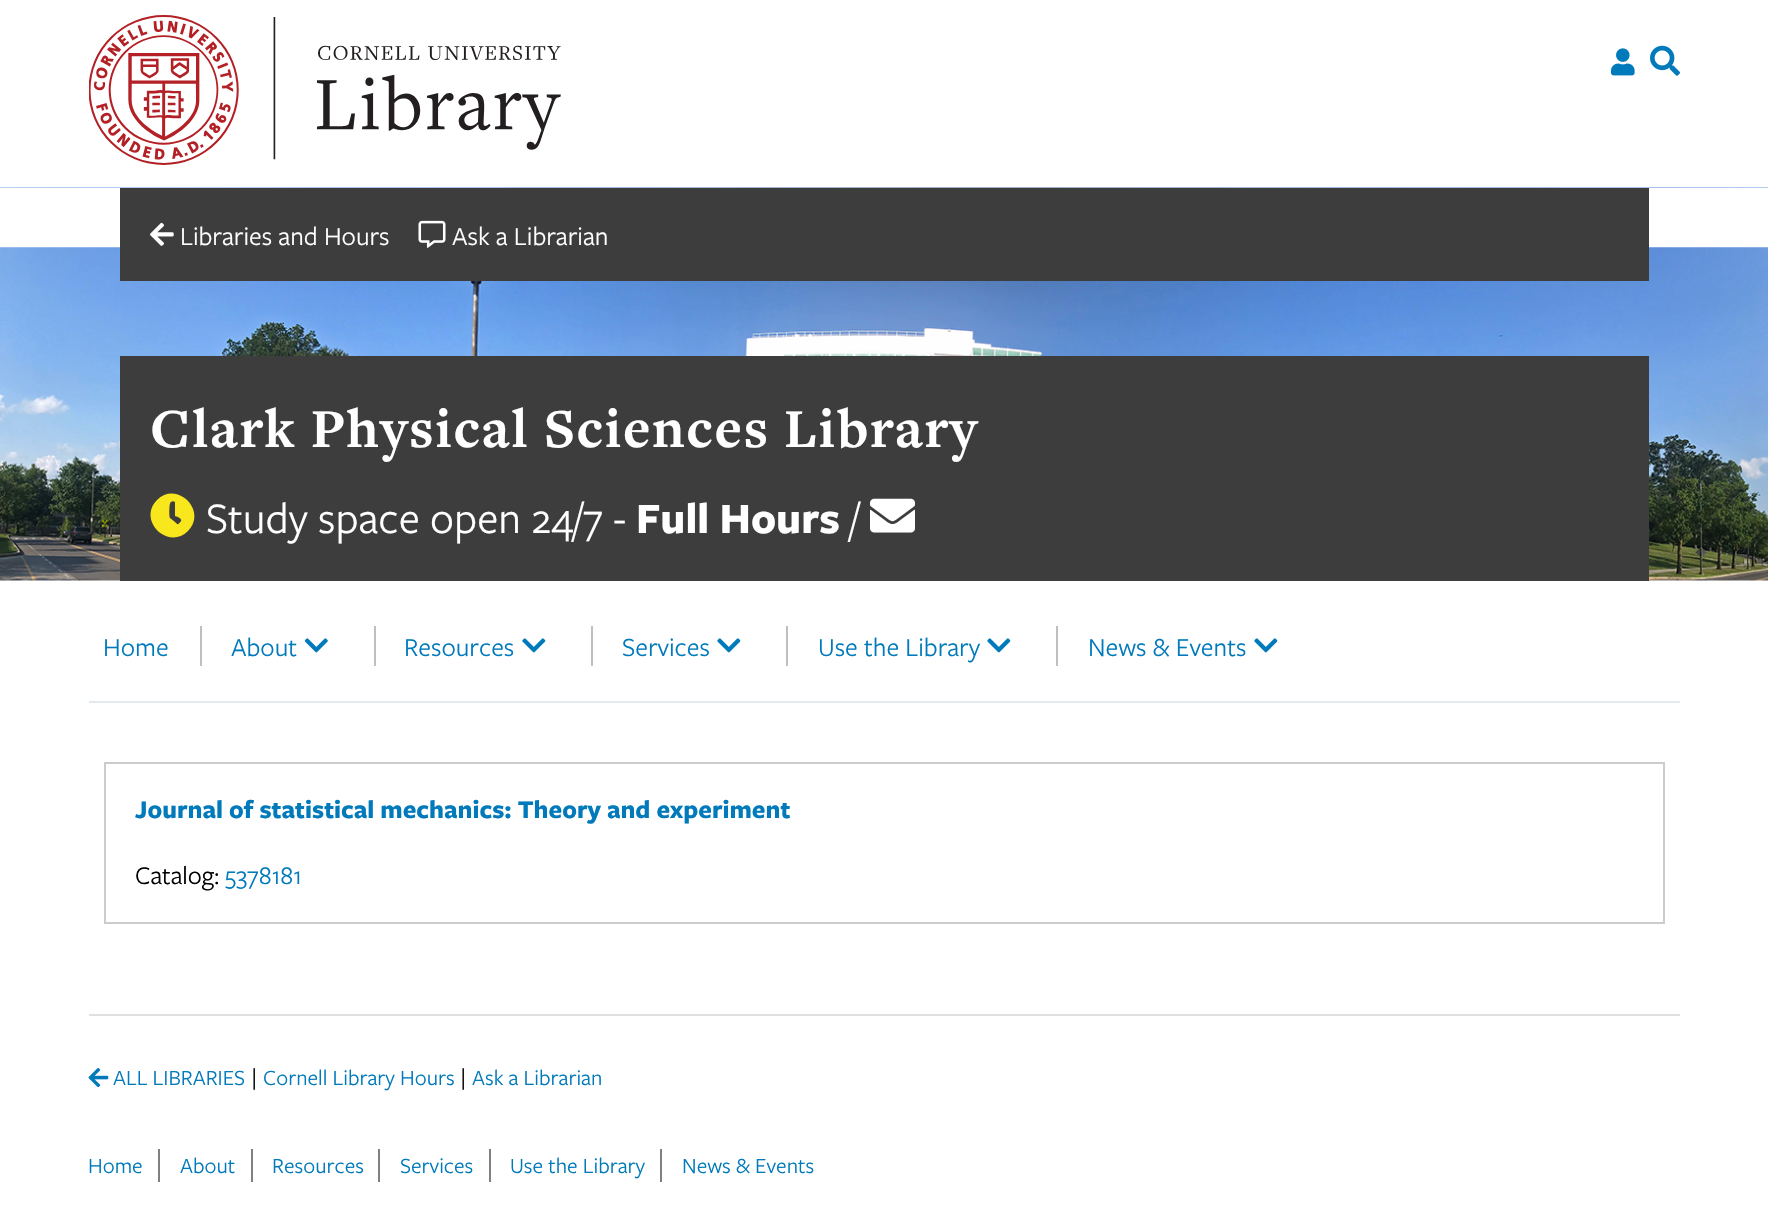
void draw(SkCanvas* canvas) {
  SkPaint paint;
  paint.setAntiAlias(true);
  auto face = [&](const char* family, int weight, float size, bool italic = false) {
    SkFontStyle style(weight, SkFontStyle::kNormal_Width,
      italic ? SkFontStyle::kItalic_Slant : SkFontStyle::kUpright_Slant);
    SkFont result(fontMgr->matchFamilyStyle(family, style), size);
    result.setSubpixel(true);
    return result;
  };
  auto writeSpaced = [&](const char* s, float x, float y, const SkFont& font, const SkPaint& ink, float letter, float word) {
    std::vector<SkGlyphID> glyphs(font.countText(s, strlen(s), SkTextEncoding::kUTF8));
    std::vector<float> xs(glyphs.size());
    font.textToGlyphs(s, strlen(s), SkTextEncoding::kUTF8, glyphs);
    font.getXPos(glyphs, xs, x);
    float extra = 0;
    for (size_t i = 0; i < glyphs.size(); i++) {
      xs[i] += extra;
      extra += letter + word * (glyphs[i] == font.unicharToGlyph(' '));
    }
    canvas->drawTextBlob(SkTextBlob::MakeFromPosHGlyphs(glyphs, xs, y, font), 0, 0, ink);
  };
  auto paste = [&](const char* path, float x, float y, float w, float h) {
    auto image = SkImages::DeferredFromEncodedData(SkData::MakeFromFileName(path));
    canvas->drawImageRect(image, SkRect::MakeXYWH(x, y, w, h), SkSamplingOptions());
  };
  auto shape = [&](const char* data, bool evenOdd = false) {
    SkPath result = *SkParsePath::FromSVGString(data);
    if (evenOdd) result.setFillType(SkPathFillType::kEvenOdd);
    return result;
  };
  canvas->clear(0xffffffff);
  paste("img/1.png", 89, 15, 472, 150);
  paste("img/2.png", 1611, 48, 24, 28);
  paste("img/3.png", 1650, 45, 30, 31);
  paste("img/4.png", 0, 187, 1768, 394);
  paint.setColor(0xff3d3d3d);
  canvas->drawRect(SkRect::MakeXYWH(120, 188, 1529, 93), paint);
  paste("img/5.png", 150, 222, 24, 24);
  paste("img/6.png", 418, 220, 28, 28);
  canvas->drawRect(SkRect::MakeXYWH(120, 356, 1529, 225), paint);
  paint.setColor(0xfff8e71c);
  canvas->drawPath(shape("M157 500C177 480 208 511 188 531C168 551 137 520 157 500ZM181 521C183 519 176 516 175 516V502C174 501 172 501 171 502C169 502 169 517 170 518L175 522C178 525 178 525 181 521Z"), paint);
  paste("img/7.png", 870, 498, 45, 35);
  paint.setColor(0xffc1bebe);
  canvas->drawRect(SkRect::MakeXYWH(200, 626, 2, 40), paint);
  canvas->drawRect(SkRect::MakeXYWH(374, 626, 2, 40), paint);
  paste("img/8.png", 304, 638, 24, 15);
  canvas->drawRect(SkRect::MakeXYWH(591, 626, 2, 40), paint);
  paste("img/9.png", 522, 638, 24, 15);
  canvas->drawRect(SkRect::MakeXYWH(786, 626, 2, 40), paint);
  paste("img/9.png", 717, 638, 24, 15);
  canvas->drawRect(SkRect::MakeXYWH(1056, 626, 2, 40), paint);
  paste("img/9.png", 987, 638, 24, 15);
  paste("img/9.png", 1254, 638, 24, 15);
  paint.setColor(0xffe2eaef);
  canvas->drawRect(SkRect::MakeXYWH(89, 701, 1591, 2), paint);
  paint.setStroke(true);
  paint.setStrokeWidth(2);
  paint.setColor(0xffcccccc);
  canvas->drawRect(SkRect::MakeXYWH(105, 763, 1559, 160), paint);
  paint.setStroke(false);
  paint.setColor(0xffe0e0e0);
  canvas->drawRect(SkRect::MakeXYWH(89, 1014, 1591, 2), paint);
  paste("img/10.png", 88, 1068, 21, 20);
  {
    const struct { float x, y, w, h; SkColor color; } items[] = {
      {158, 1149, 2, 33, 0xff808080},
      {251, 1149, 2, 33, 0xff808080},
      {378, 1149, 2, 33, 0xff808080},
      {489, 1149, 2, 33, 0xff808080},
      {660, 1149, 2, 33, 0xff808080},
    };
    for (auto [x, y, w, h, color] : items) {
      paint.setColor(color);
      canvas->drawRect(SkRect::MakeXYWH(x, y, w, h), paint);
    }
  }
  auto f0 = face("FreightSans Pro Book", 400, 27);
  paint.setColor(0xffffffff);
  canvas->drawString("Libraries and Hours", 180, 245, f0, paint);
  canvas->drawString("Ask a Librarian", 452, 245, f0, paint);
  auto f1 = face("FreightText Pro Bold", 700, 57);
  writeSpaced("Clark Physical Sciences Library", 150, 447, f1, paint, 1.5f, 0);
  auto f2 = face("FreightSans Pro Book", 400, 45);
  canvas->drawString("Study space open 24/7 -", 206, 533, f2, paint);
  auto f3 = face("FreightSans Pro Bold", 700, 45);
  canvas->drawString("Full Hours", 636, 533, f3, paint);
  canvas->drawString("/", 850, 533, f2, paint);
  paint.setColor(0xff017abc);
  {
    const struct { const char* s; float x, y; } items[] = {
      {"Home", 103, 656},
      {"About", 231, 656},
      {"Resources", 404, 656},
      {"Services", 622, 656},
      {"Use the Library", 818, 656},
      {"News & Events", 1088, 656},
    };
    for (auto [s, x, y] : items) {
      canvas->drawString(s, x, y, f0, paint);
    }
  }
  auto f4 = face("FreightSans Pro Bold", 700, 26.4f);
  canvas->drawString("Journal of statistical mechanics: Theory and experiment", 135, 818, f4, paint);
  auto f5 = face("FreightSans Pro Book", 400, 26.4f);
  paint.setColor(0xff000000);
  canvas->drawString("Catalog:", 135, 884, f5, paint);
  paint.setColor(0xff017abc);
  canvas->drawString("5378181", 225, 884, f5, paint);
  auto f6 = face("FreightSans Pro Book", 400, 22.5f);
  canvas->drawString("ALL LIBRARIES", 113, 1085, f6, paint);
  auto f7 = face("FreightSans Pro Book", 400, 24);
  paint.setColor(0xff000000);
  canvas->drawString("|", 251, 1085, f7, paint);
  paint.setColor(0xff017abc);
  canvas->drawString("Cornell Library Hours", 263, 1085, f6, paint);
  paint.setColor(0xff000000);
  canvas->drawString("|", 460, 1085, f7, paint);
  paint.setColor(0xff017abc);
  {
    const struct { const char* s; float x, y; } items[] = {
      {"Ask a Librarian", 472, 1085},
      {"Home", 88, 1173},
      {"About", 180, 1173},
      {"Resources", 272, 1173},
      {"Services", 400, 1173},
      {"Use the Library", 510, 1173},
      {"News & Events", 682, 1173},
    };
    for (auto [s, x, y] : items) {
      canvas->drawString(s, x, y, f6, paint);
    }
  }
}
